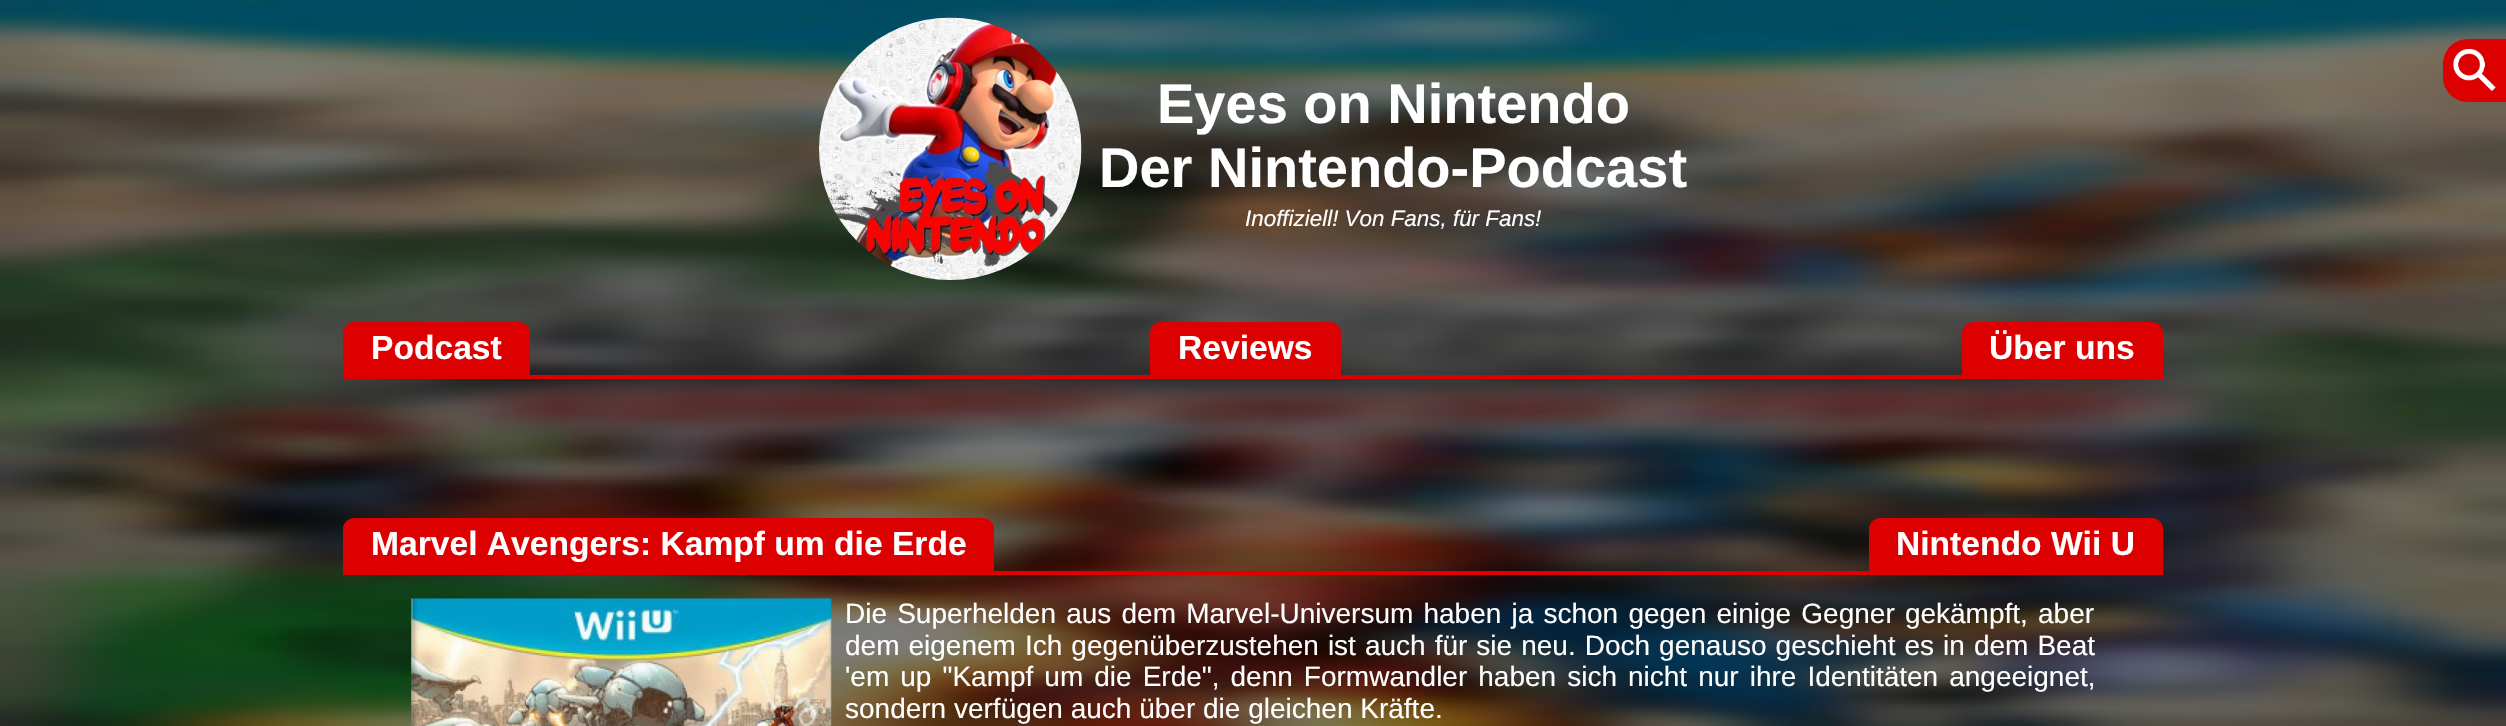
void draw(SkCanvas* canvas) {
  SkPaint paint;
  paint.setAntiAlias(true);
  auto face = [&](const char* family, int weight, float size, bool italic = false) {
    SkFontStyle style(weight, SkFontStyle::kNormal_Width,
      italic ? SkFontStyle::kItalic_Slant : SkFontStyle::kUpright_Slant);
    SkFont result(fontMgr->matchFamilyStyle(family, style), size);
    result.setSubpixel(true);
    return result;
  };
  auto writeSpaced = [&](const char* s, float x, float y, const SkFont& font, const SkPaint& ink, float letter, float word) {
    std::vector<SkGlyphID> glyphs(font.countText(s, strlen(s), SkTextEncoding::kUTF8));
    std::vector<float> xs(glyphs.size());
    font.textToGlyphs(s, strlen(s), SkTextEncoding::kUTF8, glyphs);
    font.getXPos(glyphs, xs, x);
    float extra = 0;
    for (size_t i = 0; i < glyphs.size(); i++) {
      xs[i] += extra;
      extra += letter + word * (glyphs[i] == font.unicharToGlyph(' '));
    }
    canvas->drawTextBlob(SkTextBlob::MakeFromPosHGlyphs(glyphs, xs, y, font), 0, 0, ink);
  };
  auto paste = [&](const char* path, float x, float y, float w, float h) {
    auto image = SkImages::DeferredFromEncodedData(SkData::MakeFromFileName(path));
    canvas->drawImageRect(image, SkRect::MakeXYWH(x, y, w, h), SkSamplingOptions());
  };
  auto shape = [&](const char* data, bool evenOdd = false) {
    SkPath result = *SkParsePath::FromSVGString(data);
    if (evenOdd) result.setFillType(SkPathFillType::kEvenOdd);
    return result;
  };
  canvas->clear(0xffffffff);
  paste("img/1.png", 0, 0, 2506, 726);
  paint.setColor(0xffdd0000);
  canvas->drawPath(shape("M2468 39H2506V102H2468C2454 102 2443 91 2443 77V64C2443 50 2454 39 2468 39Z"), paint);
  paste("img/2.png", 2453, 49, 43, 42);
  paste("img/3.png", 819, 17, 263, 263);
  canvas->drawRect(SkRect::MakeXYWH(343, 375, 1820, 4), paint);
  canvas->drawPath(shape("M354 322H519C525 322 530 327 530 333V375H343V333C343 327 348 322 354 322Z"), paint);
  canvas->drawPath(shape("M1161 322H1330C1336 322 1341 327 1341 333V375H1150V333C1150 327 1155 322 1161 322Z"), paint);
  canvas->drawPath(shape("M1973 322H2152C2158 322 2163 327 2163 333V375H1962V333C1962 327 1967 322 1973 322Z"), paint);
  canvas->drawRect(SkRect::MakeXYWH(343, 571, 1820, 4), paint);
  canvas->drawPath(shape("M354 518H983C989 518 994 523 994 529V571H343V529C343 523 348 518 354 518Z"), paint);
  canvas->drawPath(shape("M1880 518H2152C2158 518 2163 523 2163 529V571H1869V529C1869 523 1874 518 1880 518Z"), paint);
  paste("img/4.png", 411, 598, 421, 128);
  auto f0 = face("Liberation Sans", 700, 56);
  paint.setColor(0xffffffff);
  canvas->drawString("Eyes on Nintendo", 1157, 123, f0, paint);
  canvas->drawString("Der Nintendo-Podcast", 1099, 187, f0, paint);
  auto f1 = face("Liberation Sans", 400, 22.4f, true);
  canvas->drawString("Inoffiziell! Von Fans, für Fans!", 1245, 226, f1, paint);
  auto f2 = face("Liberation Sans", 700, 33.6f);
  {
    const struct { const char* s; float x, y; } items[] = {
      {"Podcast", 371, 359},
      {"Reviews", 1178, 359},
      {"Über uns", 1989, 359},
      {"Marvel Avengers: Kampf um die Erde", 371, 555},
      {"Nintendo Wii U", 1896, 555},
    };
    for (auto [s, x, y] : items) {
      canvas->drawString(s, x, y, f2, paint);
    }
  }
  auto f3 = face("Liberation Sans", 400, 28);
  writeSpaced("Die Superhelden aus dem Marvel-Universum haben ja schon gegen einige Gegner gekämpft, aber", 845, 623, f3, paint, 0, 2.4f);
  writeSpaced("dem eigenem Ich gegenüberzustehen ist auch für sie neu. Doch genauso geschieht es in dem Beat", 845, 655, f3, paint, 0, 1.25f);
  writeSpaced("'em up \"Kampf um die Erde\", denn Formwandler haben sich nicht nur ihre Identitäten angeeignet,", 845, 686, f3, paint, 0, 3.25f);
  canvas->drawString("sondern verfügen auch über die gleichen Kräfte.", 845, 718, f3, paint);
}
